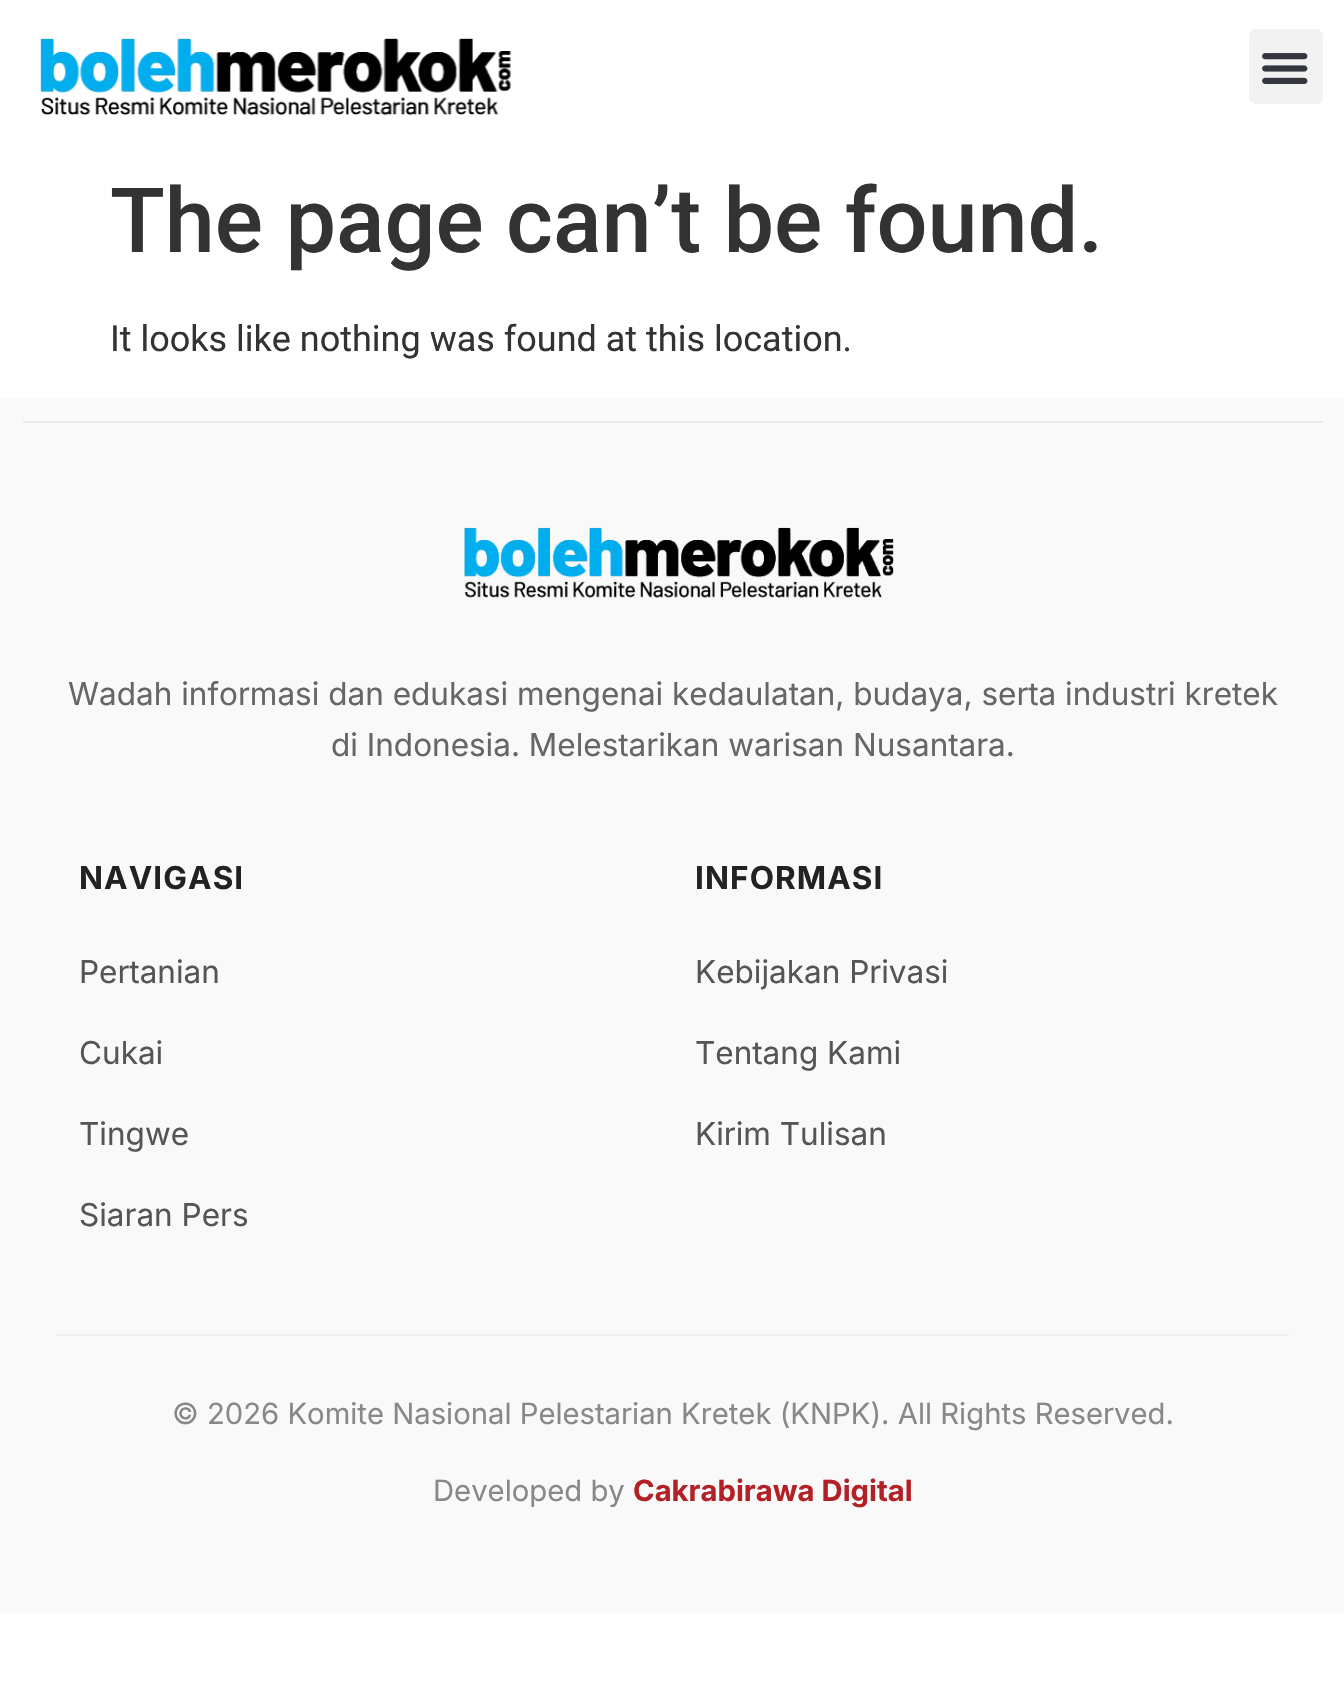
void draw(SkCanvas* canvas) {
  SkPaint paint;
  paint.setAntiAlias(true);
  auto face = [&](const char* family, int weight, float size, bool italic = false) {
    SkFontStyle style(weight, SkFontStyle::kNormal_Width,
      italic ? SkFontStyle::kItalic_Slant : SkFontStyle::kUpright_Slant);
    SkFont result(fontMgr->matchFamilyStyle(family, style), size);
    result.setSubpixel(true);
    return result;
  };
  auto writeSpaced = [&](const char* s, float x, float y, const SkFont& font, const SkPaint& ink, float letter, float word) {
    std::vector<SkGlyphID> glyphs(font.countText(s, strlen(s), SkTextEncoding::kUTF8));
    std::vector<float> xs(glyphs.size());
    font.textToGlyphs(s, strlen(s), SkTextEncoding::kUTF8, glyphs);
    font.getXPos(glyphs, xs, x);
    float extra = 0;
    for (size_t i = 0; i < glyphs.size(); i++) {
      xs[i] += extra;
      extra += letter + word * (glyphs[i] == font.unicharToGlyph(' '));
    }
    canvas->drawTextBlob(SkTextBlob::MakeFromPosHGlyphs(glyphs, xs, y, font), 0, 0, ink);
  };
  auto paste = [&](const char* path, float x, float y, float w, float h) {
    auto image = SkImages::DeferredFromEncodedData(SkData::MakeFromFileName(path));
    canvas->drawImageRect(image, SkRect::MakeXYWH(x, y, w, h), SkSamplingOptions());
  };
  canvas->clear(0xffffffff);
  paste("img/1.png", 40, 38, 472, 78);
  paint.setColor(0xfff2f2f2);
  canvas->drawRoundRect(SkRect::MakeXYWH(1249, 29, 74, 75), 7, 7, paint);
  paste("img/2.png", 1262, 53, 46, 31);
  paint.setColor(0xfff9f9f9);
  canvas->drawRect(SkRect::MakeXYWH(0, 398, 1344, 1215), paint);
  paint.setColor(0xffeaeaea);
  canvas->drawRect(SkRect::MakeXYWH(23, 421, 1300, 2), paint);
  paste("img/3.png", 464, 527, 430, 71);
  paint.setColor(0xfff0f0f0);
  canvas->drawRect(SkRect::MakeXYWH(56, 1334, 1233, 2), paint);
  auto f0 = face("Roboto", 500, 90);
  paint.setColor(0xff333333);
  canvas->drawString("The page can’t be found.", 110, 252, f0, paint);
  auto f1 = face("Roboto", 400, 36);
  canvas->drawString("It looks like nothing was found at this location.", 110, 351, f1, paint);
  auto f2 = face("Inter", 400, 31.5f);
  paint.setColor(0xff666666);
  canvas->drawString("Wadah informasi dan edukasi mengenai kedaulatan, budaya, serta industri kretek", 68, 705, f2, paint);
  canvas->drawString("di Indonesia. Melestarikan warisan Nusantara.", 331, 756, f2, paint);
  auto f3 = face("Inter", 700, 31.5f);
  paint.setColor(0xff222222);
  writeSpaced("NAVIGASI", 79, 889, f3, paint, 1.1f, 0);
  paint.setColor(0xff555555);
  {
    const struct { const char* s; float x, y; } items[] = {
      {"Pertanian", 79, 983},
      {"Cukai", 79, 1064},
      {"Tingwe", 79, 1145},
      {"Siaran Pers", 79, 1226},
    };
    for (auto [s, x, y] : items) {
      canvas->drawString(s, x, y, f2, paint);
    }
  }
  paint.setColor(0xff222222);
  writeSpaced("INFORMASI", 695, 889, f3, paint, 1.1f, 0);
  paint.setColor(0xff555555);
  {
    const struct { const char* s; float x, y; } items[] = {
      {"Kebijakan Privasi", 695, 983},
      {"Tentang Kami", 695, 1064},
      {"Kirim Tulisan", 695, 1145},
    };
    for (auto [s, x, y] : items) {
      canvas->drawString(s, x, y, f2, paint);
    }
  }
  auto f4 = face("Inter", 400, 29.25f);
  paint.setColor(0xff888888);
  canvas->drawString("© 2026 Komite Nasional Pelestarian Kretek (KNPK). All Rights Reserved.", 172, 1424, f4, paint);
  canvas->drawString("Developed by", 433, 1501, f4, paint);
  auto f5 = face("Inter", 700, 29.25f);
  paint.setColor(0xffb32025);
  canvas->drawString("Cakrabirawa Digital", 633, 1501, f5, paint);
}
